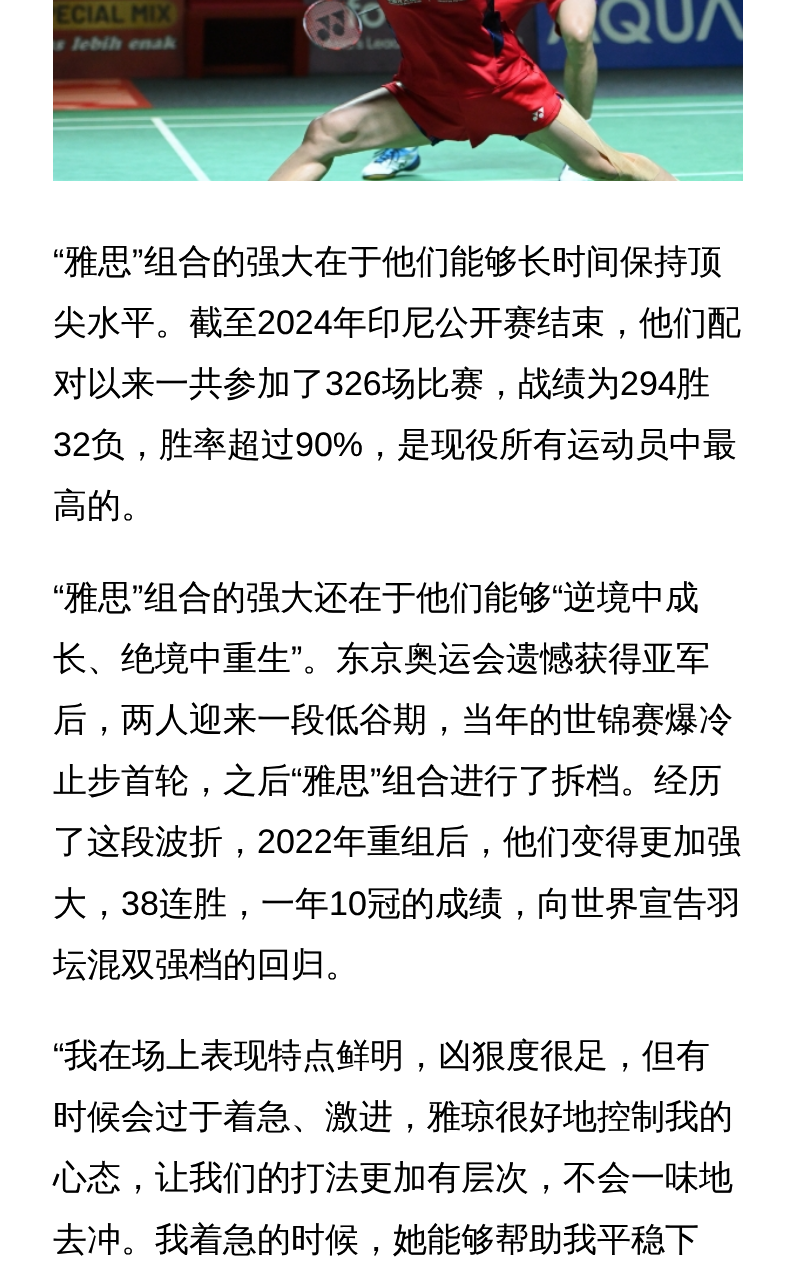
void draw(SkCanvas* canvas) {
  SkPaint paint;
  paint.setAntiAlias(true);
  auto face = [&](const char* family, int weight, float size, bool italic = false) {
    SkFontStyle style(weight, SkFontStyle::kNormal_Width,
      italic ? SkFontStyle::kItalic_Slant : SkFontStyle::kUpright_Slant);
    SkFont result(fontMgr->matchFamilyStyle(family, style), size);
    result.setSubpixel(true);
    return result;
  };
  auto paste = [&](const char* path, float x, float y, float w, float h) {
    auto image = SkImages::DeferredFromEncodedData(SkData::MakeFromFileName(path));
    canvas->drawImageRect(image, SkRect::MakeXYWH(x, y, w, h), SkSamplingOptions());
  };
  canvas->clear(0xffffffff);
  paste("img/1.png", 53, 0, 690, 181);
  auto f0 = face("Liberation Sans", 400, 34);
  paint.setColor(0xff000000);
  canvas->drawString("“", 53, 273, f0, paint);
  auto f1 = face("WenQuanYi Zen Hei", 500, 34);
  canvas->drawString("雅思", 64, 273, f1, paint);
  canvas->drawString("”", 132, 273, f0, paint);
  canvas->drawString("组合的强大在于他们能够长时间保持顶", 144, 273, f1, paint);
  canvas->drawString("尖水平。截至", 53, 334, f1, paint);
  canvas->drawString("2024", 257, 334, f0, paint);
  canvas->drawString("年印尼公开赛结束，他们配", 333, 334, f1, paint);
  canvas->drawString("对以来一共参加了", 53, 395, f1, paint);
  canvas->drawString("326", 325, 395, f0, paint);
  canvas->drawString("场比赛，战绩为", 382, 395, f1, paint);
  canvas->drawString("294", 620, 395, f0, paint);
  canvas->drawString("胜", 676, 395, f1, paint);
  canvas->drawString("32", 53, 456, f0, paint);
  canvas->drawString("负，胜率超过", 91, 456, f1, paint);
  canvas->drawString("90%", 295, 456, f0, paint);
  canvas->drawString("，是现役所有运动员中最", 363, 456, f1, paint);
  canvas->drawString("高的。", 53, 517, f1, paint);
  canvas->drawString("“", 53, 609, f0, paint);
  canvas->drawString("雅思", 64, 609, f1, paint);
  canvas->drawString("”", 132, 609, f0, paint);
  canvas->drawString("组合的强大还在于他们能够", 144, 609, f1, paint);
  canvas->drawString("“", 552, 609, f0, paint);
  canvas->drawString("逆境中成", 563, 609, f1, paint);
  canvas->drawString("长、绝境中重生", 53, 670, f1, paint);
  canvas->drawString("”", 291, 670, f0, paint);
  {
    const struct { const char* s; float x, y; } items[] = {
      {"。东京奥运会遗憾获得亚军", 302, 670},
      {"后，两人迎来一段低谷期，当年的世锦赛爆冷", 53, 731},
      {"止步首轮，之后", 53, 792},
    };
    for (auto [s, x, y] : items) {
      canvas->drawString(s, x, y, f1, paint);
    }
  }
  canvas->drawString("“", 291, 792, f0, paint);
  canvas->drawString("雅思", 302, 792, f1, paint);
  canvas->drawString("”", 370, 792, f0, paint);
  canvas->drawString("组合进行了拆档。经历", 382, 792, f1, paint);
  canvas->drawString("了这段波折，", 53, 853, f1, paint);
  canvas->drawString("2022", 257, 853, f0, paint);
  canvas->drawString("年重组后，他们变得更加强", 333, 853, f1, paint);
  canvas->drawString("大，", 53, 915, f1, paint);
  canvas->drawString("38", 121, 915, f0, paint);
  canvas->drawString("连胜，一年", 159, 915, f1, paint);
  canvas->drawString("10", 329, 915, f0, paint);
  canvas->drawString("冠的成绩，向世界宣告羽", 367, 915, f1, paint);
  canvas->drawString("坛混双强档的回归。", 53, 976, f1, paint);
  canvas->drawString("“", 53, 1067, f0, paint);
  {
    const struct { const char* s; float x, y; } items[] = {
      {"我在场上表现特点鲜明，凶狠度很足，但有", 64, 1067},
      {"时候会过于着急、激进，雅琼很好地控制我的", 53, 1128},
      {"心态，让我们的打法更加有层次，不会一味地", 53, 1189},
      {"去冲。我着急的时候，她能够帮助我平稳下", 53, 1251},
    };
    for (auto [s, x, y] : items) {
      canvas->drawString(s, x, y, f1, paint);
    }
  }
}
